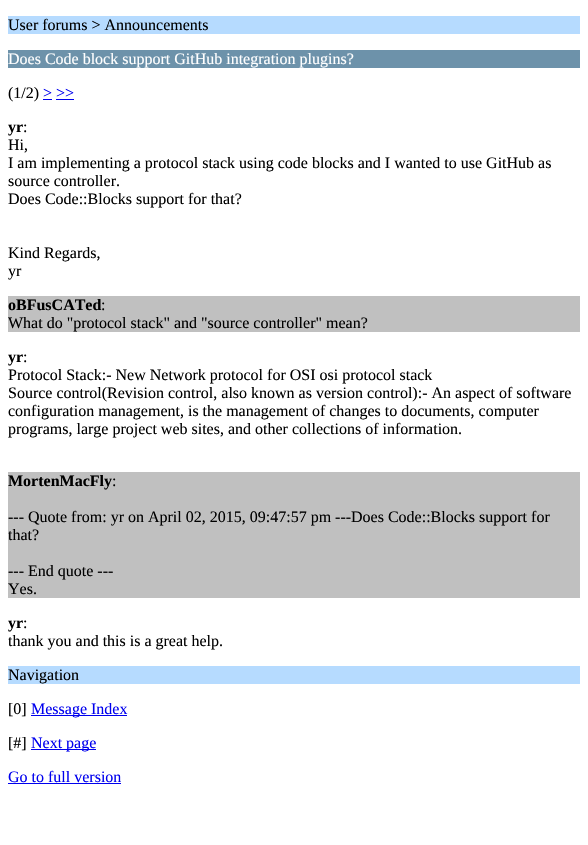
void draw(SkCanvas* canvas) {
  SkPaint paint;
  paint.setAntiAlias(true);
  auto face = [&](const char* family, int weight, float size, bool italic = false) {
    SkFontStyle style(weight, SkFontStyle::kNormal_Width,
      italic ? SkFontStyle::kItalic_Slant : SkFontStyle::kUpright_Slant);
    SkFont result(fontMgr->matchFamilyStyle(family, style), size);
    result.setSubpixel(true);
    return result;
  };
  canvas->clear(0xffffffff);
  {
    const struct { float x, y, w, h; SkColor color; } items[] = {
      {8, 16, 572, 18, 0xffb6dbff},
      {8, 50, 572, 18, 0xff6d92aa},
      {43, 99, 9, 1, 0xff0000ee},
      {56, 99, 18, 1, 0xff0000ee},
      {8, 296, 572, 36, 0xffc0c0c0},
      {8, 472, 572, 126, 0xffc0c0c0},
      {8, 666, 572, 18, 0xffb6dbff},
      {31, 715, 96, 1, 0xff0000ee},
      {31, 749, 65, 1, 0xff0000ee},
      {8, 783, 113, 1, 0xff0000ee},
    };
    for (auto [x, y, w, h, color] : items) {
      paint.setColor(color);
      canvas->drawRect(SkRect::MakeXYWH(x, y, w, h), paint);
    }
  }
  auto f0 = face("Liberation Serif", 400, 16);
  paint.setColor(0xff000000);
  canvas->drawString("User forums > Announcements", 8, 30, f0, paint);
  paint.setColor(0xffffffff);
  canvas->drawString("Does Code block support GitHub integration plugins?", 8, 64, f0, paint);
  paint.setColor(0xff000000);
  canvas->drawString("(1/2)", 8, 98, f0, paint);
  paint.setColor(0xff0000ee);
  canvas->drawString("> >>", 43, 98, f0, paint);
  auto f1 = face("Liberation Serif", 700, 16);
  paint.setColor(0xff000000);
  canvas->drawString("yr", 8, 132, f1, paint);
  {
    const struct { const char* s; float x, y; } items[] = {
      {":", 23, 132},
      {"Hi,", 8, 150},
      {"I am implementing a protocol stack using code blocks and I wanted to use GitHub as", 8, 168},
      {"source controller.", 8, 186},
      {"Does Code::Blocks support for that?", 8, 204},
      {"Kind Regards,", 8, 258},
      {"yr", 8, 276},
    };
    for (auto [s, x, y] : items) {
      canvas->drawString(s, x, y, f0, paint);
    }
  }
  canvas->drawString("oBFusCATed", 8, 310, f1, paint);
  canvas->drawString(":", 101, 310, f0, paint);
  canvas->drawString("What do \"protocol stack\" and \"source controller\" mean?", 8, 328, f0, paint);
  canvas->drawString("yr", 8, 362, f1, paint);
  {
    const struct { const char* s; float x, y; } items[] = {
      {":", 23, 362},
      {"Protocol Stack:- New Network protocol for OSI osi protocol stack", 8, 380},
      {"Source control(Revision control, also known as version control):- An aspect of software", 8, 398},
      {"configuration management, is the management of changes to documents, computer", 8, 416},
      {"programs, large project web sites, and other collections of information.", 8, 434},
    };
    for (auto [s, x, y] : items) {
      canvas->drawString(s, x, y, f0, paint);
    }
  }
  canvas->drawString("MortenMacFly", 8, 486, f1, paint);
  {
    const struct { const char* s; float x, y; } items[] = {
      {":", 112, 486},
      {"--- Quote from: yr on April 02, 2015, 09:47:57 pm ---Does Code::Blocks support for", 8, 522},
      {"that?", 8, 540},
      {"--- End quote ---", 8, 576},
      {"Yes.", 8, 594},
    };
    for (auto [s, x, y] : items) {
      canvas->drawString(s, x, y, f0, paint);
    }
  }
  canvas->drawString("yr", 8, 628, f1, paint);
  {
    const struct { const char* s; float x, y; } items[] = {
      {":", 23, 628},
      {"thank you and this is a great help.", 8, 646},
      {"Navigation", 8, 680},
      {"[0]", 8, 714},
    };
    for (auto [s, x, y] : items) {
      canvas->drawString(s, x, y, f0, paint);
    }
  }
  paint.setColor(0xff0000ee);
  canvas->drawString("Message Index", 31, 714, f0, paint);
  paint.setColor(0xff000000);
  canvas->drawString("[#]", 8, 748, f0, paint);
  paint.setColor(0xff0000ee);
  canvas->drawString("Next page", 31, 748, f0, paint);
  canvas->drawString("Go to full version", 8, 782, f0, paint);
}
